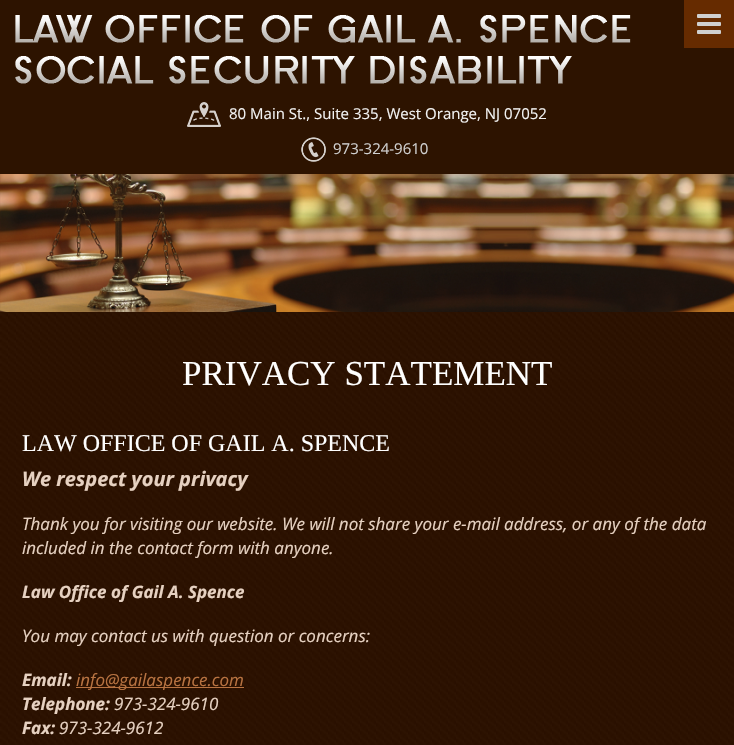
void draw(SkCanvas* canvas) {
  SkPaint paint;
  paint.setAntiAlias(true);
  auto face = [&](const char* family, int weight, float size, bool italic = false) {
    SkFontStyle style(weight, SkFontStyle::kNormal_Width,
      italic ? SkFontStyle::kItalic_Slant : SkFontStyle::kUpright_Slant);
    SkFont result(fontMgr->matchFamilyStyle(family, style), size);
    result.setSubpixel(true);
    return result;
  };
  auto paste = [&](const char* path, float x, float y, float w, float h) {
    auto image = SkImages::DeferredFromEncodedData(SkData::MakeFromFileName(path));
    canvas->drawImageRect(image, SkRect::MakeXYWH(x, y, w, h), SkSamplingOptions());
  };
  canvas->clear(0xffffffff);
  paint.setColor(0xff2d1300);
  canvas->drawRect(SkRect::MakeXYWH(0, 0, 734, 174), paint);
  paste("img/1.png", 15, 15, 616, 69);
  paint.setColor(0xff662b00);
  canvas->drawRect(SkRect::MakeXYWH(684, 0, 50, 48), paint);
  paste("img/2.png", 697, 14, 24, 20);
  paste("img/3.png", 187, 102, 34, 25);
  paste("img/4.png", 301, 137, 25, 25);
  paste("img/5.png", 0, 174, 734, 138);
  paste("img/6.png", 0, 312, 734, 433);
  paint.setColor(0xffb87341);
  canvas->drawRect(SkRect::MakeXYWH(76, 687, 168, 1), paint);
  auto f0 = face("Open Sans", 400, 15);
  paint.setColor(0xfff2f2f2);
  canvas->drawString("80 Main St., Suite 335, West Orange, NJ 07052", 229, 119, f0, paint);
  paint.setColor(0xffd0d0d0);
  canvas->drawString("973-324-9610", 333, 154, f0, paint);
  auto f1 = face("Liberation Serif", 400, 35);
  paint.setColor(0xfffefefe);
  canvas->drawString("PRIVACY STATEMENT", 182, 385, f1, paint);
  auto f2 = face("Liberation Serif", 400, 24);
  canvas->drawString("LAW OFFICE OF GAIL A. SPENCE", 22, 451, f2, paint);
  auto f3 = face("Open Sans", 700, 20, true);
  paint.setColor(0xffe6d1c1);
  canvas->drawString("We respect your privacy", 22, 486, f3, paint);
  auto f4 = face("Open Sans", 400, 17, true);
  canvas->drawString("Thank you for visiting our website. We will not share your e-mail address, or any of the data", 22, 530, f4, paint);
  canvas->drawString("included in the contact form with anyone.", 22, 554, f4, paint);
  auto f5 = face("Open Sans", 700, 17, true);
  canvas->drawString("Law Office of Gail A. Spence", 22, 598, f5, paint);
  canvas->drawString("You may contact us with question or concerns:", 22, 642, f4, paint);
  canvas->drawString("Email:", 22, 686, f5, paint);
  paint.setColor(0xffb87341);
  canvas->drawString("info@gailaspence.com", 76, 686, f4, paint);
  paint.setColor(0xffe6d1c1);
  canvas->drawString("Telephone:", 22, 710, f5, paint);
  canvas->drawString("973-324-9610", 114, 710, f4, paint);
  canvas->drawString("Fax:", 22, 734, f5, paint);
  canvas->drawString("973-324-9612", 59, 734, f4, paint);
}
